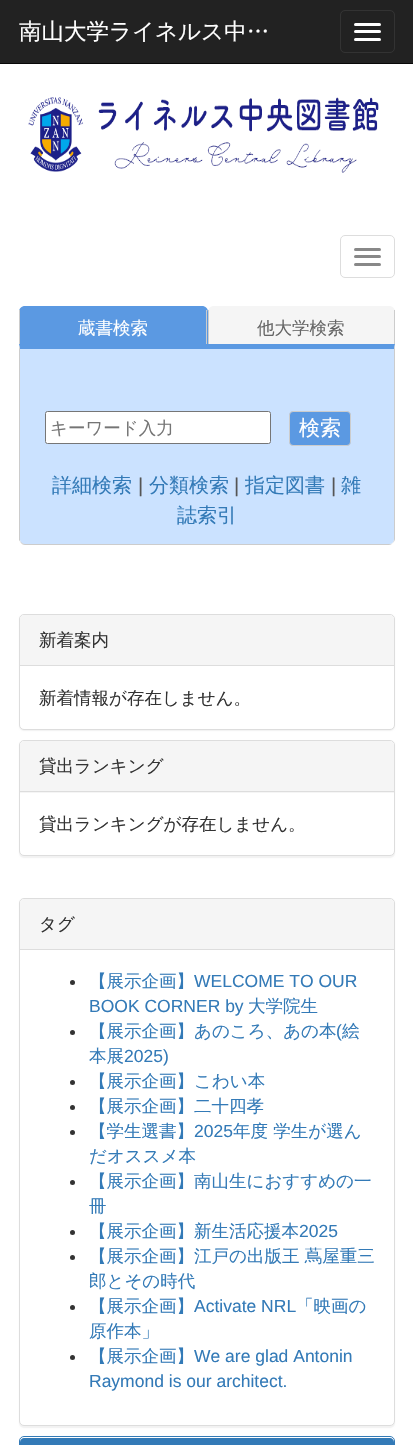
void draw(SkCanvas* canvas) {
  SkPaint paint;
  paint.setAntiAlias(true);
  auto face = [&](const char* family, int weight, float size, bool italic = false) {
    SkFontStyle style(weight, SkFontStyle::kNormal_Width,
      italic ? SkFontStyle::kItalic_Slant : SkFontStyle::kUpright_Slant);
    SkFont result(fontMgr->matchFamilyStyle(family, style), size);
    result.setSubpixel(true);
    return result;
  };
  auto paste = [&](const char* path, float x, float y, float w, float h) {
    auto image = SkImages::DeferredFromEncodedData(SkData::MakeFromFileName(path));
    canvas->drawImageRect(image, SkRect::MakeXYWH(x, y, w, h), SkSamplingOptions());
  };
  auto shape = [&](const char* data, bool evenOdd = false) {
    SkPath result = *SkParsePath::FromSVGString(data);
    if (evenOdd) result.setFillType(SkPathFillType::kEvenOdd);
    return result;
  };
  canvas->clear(0xffffffff);
  paint.setColor(0xff222222);
  canvas->drawRect(SkRect::MakeXYWH(0, 0, 413, 63), paint);
  paint.setColor(0xff080808);
  canvas->drawRect(SkRect::MakeXYWH(0, 63, 413, 1), paint);
  paint.setStroke(true);
  paint.setStrokeWidth(1);
  paint.setColor(0xff333333);
  canvas->drawRoundRect(SkRect::MakeXYWH(340.5f, 10.5f, 54, 42), 4.5f, 4.5f, paint);
  paint.setStroke(false);
  paint.setColor(0xffffffff);
  canvas->drawRoundRect(SkRect::MakeXYWH(354, 23, 27, 3), 1.5f, 1.5f, paint);
  canvas->drawRoundRect(SkRect::MakeXYWH(354, 30, 27, 3), 1.5f, 1.5f, paint);
  canvas->drawRoundRect(SkRect::MakeXYWH(354, 38, 27, 3), 1.5f, 1.5f, paint);
  paste("img/1.png", 28, 97, 351, 76);
  paint.setStroke(true);
  paint.setColor(0xffdddddd);
  canvas->drawRoundRect(SkRect::MakeXYWH(340.5f, 235.5f, 54, 42), 4.5f, 4.5f, paint);
  paint.setStroke(false);
  paint.setColor(0xff888888);
  canvas->drawRoundRect(SkRect::MakeXYWH(354, 248, 27, 3), 1.5f, 1.5f, paint);
  canvas->drawRoundRect(SkRect::MakeXYWH(354, 255, 27, 3), 1.5f, 1.5f, paint);
  canvas->drawRoundRect(SkRect::MakeXYWH(354, 263, 27, 3), 1.5f, 1.5f, paint);
  paint.setColor(0xff5b99e2);
  canvas->drawPath(shape("M25 306H202C205.5 306 208 308.5 208 312V344H19V312C19 308.5 21.5 306 25 306Z"), paint);
  paint.setColor(0xffcccccc);
  canvas->drawRect(SkRect::MakeXYWH(206, 310, 1, 34), paint);
  canvas->drawRect(SkRect::MakeXYWH(19, 310, 1, 34), paint);
  paint.setColor(0xfff5f5f5);
  canvas->drawPath(shape("M214 306H389C392.5 306 395 308.5 395 312V344H208V312C208 308.5 210.5 306 214 306Z"), paint);
  paint.setColor(0xffcccccc);
  canvas->drawRect(SkRect::MakeXYWH(394, 310, 1, 34), paint);
  canvas->drawRect(SkRect::MakeXYWH(208, 310, 1, 34), paint);
  paint.setColor(0xffcbe2ff);
  canvas->drawPath(shape("M20 349H394V539C394 542 392 544 389 544H25C22 544 20 542 20 539Z"), paint);
  paint.setColor(0xff5b99e2);
  canvas->drawPath(shape("M19 344L20 349H394L395 344Z"), paint);
  paint.setColor(0xffcccccc);
  canvas->drawPath(shape("M395 539V344L394 349V540L393 543C394 542 395 540 395 539Z"), paint);
  canvas->drawPath(shape("M25 545H389C390 545 392 544 393 543C392 544 390 544 389 544H25C23 544 22 543 21 542V543C22 544 23 545 25 545Z"), paint);
  canvas->drawPath(shape("M20 349L19 345V540L21 543V542C20 542 20 540 20 539Z"), paint);
  paint.setColor(0xffffffff);
  canvas->drawRoundRect(SkRect::MakeXYWH(45.5f, 411.5f, 225, 32), 2, 2, paint);
  paint.setStroke(true);
  paint.setColor(0xff767676);
  canvas->drawRoundRect(SkRect::MakeXYWH(45.5f, 411.5f, 225, 32), 2, 2, paint);
  paint.setStroke(false);
  paint.setColor(0xff5b99e2);
  canvas->drawRoundRect(SkRect::MakeXYWH(289.5f, 411.5f, 61, 34), 3.5f, 3.5f, paint);
  paint.setStroke(true);
  paint.setColor(0xffcccccc);
  canvas->drawRoundRect(SkRect::MakeXYWH(289.5f, 411.5f, 61, 34), 3.5f, 3.5f, paint);
  paint.setStroke(false);
  paint.setColor(0x0d000000);
  paint.setMaskFilter(SkMaskFilter::MakeBlur(kNormal_SkBlurStyle, 0.5f));
  canvas->drawRoundRect(SkRect::MakeXYWH(19, 615, 376, 116), 5, 5, paint);
  paint.setMaskFilter(nullptr);
  paint.setColor(0xffffffff);
  canvas->drawRoundRect(SkRect::MakeXYWH(19.5f, 614.5f, 375, 115), 4.5f, 4.5f, paint);
  paint.setStroke(true);
  paint.setColor(0xffdddddd);
  canvas->drawRoundRect(SkRect::MakeXYWH(19.5f, 614.5f, 375, 115), 4.5f, 4.5f, paint);
  paint.setStroke(false);
  paint.setColor(0xfff5f5f5);
  canvas->drawPath(shape("M24 615H390C392 615 394 617 394 619V666H20V619C20 617 22 615 24 615Z"), paint);
  paint.setColor(0xffdddddd);
  canvas->drawRect(SkRect::MakeXYWH(20, 665, 374, 1), paint);
  paint.setColor(0x0d000000);
  paint.setMaskFilter(SkMaskFilter::MakeBlur(kNormal_SkBlurStyle, 0.5f));
  canvas->drawRoundRect(SkRect::MakeXYWH(19, 741, 376, 117), 5, 5, paint);
  paint.setMaskFilter(nullptr);
  paint.setColor(0xffffffff);
  canvas->drawRoundRect(SkRect::MakeXYWH(19.5f, 740.5f, 375, 115), 4.5f, 4.5f, paint);
  paint.setStroke(true);
  paint.setColor(0xffdddddd);
  canvas->drawRoundRect(SkRect::MakeXYWH(19.5f, 740.5f, 375, 115), 4.5f, 4.5f, paint);
  paint.setStroke(false);
  paint.setColor(0xfff5f5f5);
  canvas->drawPath(shape("M24 741H390C392 741 394 743 394 745V793H20V745C20 743 22 741 24 741Z"), paint);
  paint.setColor(0xffdddddd);
  canvas->drawRect(SkRect::MakeXYWH(20, 791, 374, 1), paint);
  paint.setColor(0x0d000000);
  paint.setMaskFilter(SkMaskFilter::MakeBlur(kNormal_SkBlurStyle, 0.5f));
  canvas->drawRoundRect(SkRect::MakeXYWH(19, 899, 376, 529), 5, 5, paint);
  paint.setMaskFilter(nullptr);
  paint.setColor(0xffffffff);
  canvas->drawRoundRect(SkRect::MakeXYWH(19.5f, 898.5f, 375, 527), 4.5f, 4.5f, paint);
  paint.setStroke(true);
  paint.setColor(0xffdddddd);
  canvas->drawRoundRect(SkRect::MakeXYWH(19.5f, 898.5f, 375, 527), 4.5f, 4.5f, paint);
  paint.setStroke(false);
  paint.setColor(0xfff5f5f5);
  canvas->drawPath(shape("M24 899H390C392 899 394 901 394 903V950H20V903C20 901 22 899 24 899Z"), paint);
  paint.setColor(0xffdddddd);
  canvas->drawRect(SkRect::MakeXYWH(20, 949, 374, 1), paint);
  paint.setColor(0xff333333);
  canvas->drawCircle(72.5f, 982.5f, 2.5f, paint);
  canvas->drawCircle(72.5f, 1032.5f, 2.5f, paint);
  canvas->drawCircle(72.5f, 1082.5f, 2.5f, paint);
  canvas->drawCircle(72.5f, 1107.5f, 2.5f, paint);
  canvas->drawCircle(72.5f, 1132.5f, 2.5f, paint);
  canvas->drawCircle(72.5f, 1182.5f, 2.5f, paint);
  canvas->drawCircle(72.5f, 1232.5f, 2.5f, paint);
  canvas->drawCircle(72.5f, 1257.5f, 2.5f, paint);
  canvas->drawCircle(72.5f, 1307.5f, 2.5f, paint);
  canvas->drawCircle(72.5f, 1357.5f, 2.5f, paint);
  paint.setStroke(true);
  paint.setColor(0xff337ab7);
  canvas->drawRoundRect(SkRect::MakeXYWH(19.5f, 1436.5f, 375, 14), 4.5f, 4.5f, paint);
  paint.setStroke(false);
  canvas->drawPath(shape("M24 1438H390C392 1438 394 1440 394 1442V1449H20V1442C20 1440 22 1438 24 1438Z"), paint);
  auto f0 = face("WenQuanYi Zen Hei", 500, 22.5f);
  paint.setColor(0xffffffff);
  canvas->drawString("南山大学ライネルス中…", 19, 39, f0, paint);
  auto f1 = face("WenQuanYi Zen Hei", 500, 17.5f);
  canvas->drawString("蔵書検索", 78, 334, f1, paint);
  paint.setColor(0xff666666);
  canvas->drawString("他大学検索", 257, 334, f1, paint);
  paint.setColor(0xff757575);
  canvas->drawString("キーワード入力", 50, 434, f1, paint);
  auto f2 = face("WenQuanYi Zen Hei", 500, 21);
  paint.setColor(0xffffffff);
  canvas->drawString("検索", 299, 435, f2, paint);
  auto f3 = face("WenQuanYi Zen Hei", 500, 20);
  paint.setColor(0xff337ab7);
  canvas->drawString("詳細検索", 52, 492, f3, paint);
  auto f4 = face("Liberation Sans", 400, 20);
  paint.setColor(0xff555555);
  canvas->drawString("|", 138, 492, f4, paint);
  paint.setColor(0xff337ab7);
  canvas->drawString("分類検索", 149, 492, f3, paint);
  paint.setColor(0xff555555);
  canvas->drawString("|", 234, 492, f4, paint);
  paint.setColor(0xff337ab7);
  canvas->drawString("指定図書", 245, 492, f3, paint);
  paint.setColor(0xff555555);
  canvas->drawString("|", 331, 492, f4, paint);
  paint.setColor(0xff337ab7);
  canvas->drawString("雑", 341, 492, f3, paint);
  canvas->drawString("誌索引", 177, 522, f3, paint);
  paint.setColor(0xff333333);
  {
    const struct { const char* s; float x, y; } items[] = {
      {"新着案内", 39, 646},
      {"新着情報が存在しません。", 39, 704},
      {"貸出ランキング", 39, 772},
      {"貸出ランキングが存在しません。", 39, 830},
      {"タグ", 39, 930},
    };
    for (auto [s, x, y] : items) {
      canvas->drawString(s, x, y, f1, paint);
    }
  }
  paint.setColor(0xff337ab7);
  canvas->drawString("【展示企画】", 89, 987, f1, paint);
  auto f5 = face("Liberation Sans", 400, 17.5f);
  canvas->drawString("WELCOME TO OUR", 194, 987, f5, paint);
  canvas->drawString("BOOK CORNER by", 89, 1012, f5, paint);
  canvas->drawString("大学院生", 248, 1012, f1, paint);
  canvas->drawString("【展示企画】あのころ、あの本", 89, 1037, f1, paint);
  canvas->drawString("(", 336, 1037, f5, paint);
  canvas->drawString("絵", 342, 1037, f1, paint);
  canvas->drawString("本展", 89, 1062, f1, paint);
  canvas->drawString("2025)", 124, 1062, f5, paint);
  {
    const struct { const char* s; float x, y; } items[] = {
      {"【展示企画】こわい本", 89, 1087},
      {"【展示企画】二十四孝", 89, 1112},
      {"【学生選書】", 89, 1137},
    };
    for (auto [s, x, y] : items) {
      canvas->drawString(s, x, y, f1, paint);
    }
  }
  canvas->drawString("2025", 194, 1137, f5, paint);
  {
    const struct { const char* s; float x, y; } items[] = {
      {"年度 学生が選ん", 233, 1137},
      {"だオススメ本", 89, 1162},
      {"【展示企画】南山生におすすめの一", 89, 1187},
      {"冊", 89, 1212},
      {"【展示企画】新生活応援本", 89, 1237},
    };
    for (auto [s, x, y] : items) {
      canvas->drawString(s, x, y, f1, paint);
    }
  }
  canvas->drawString("2025", 299, 1237, f5, paint);
  {
    const struct { const char* s; float x, y; } items[] = {
      {"【展示企画】江戸の出版王 蔦屋重三", 89, 1262},
      {"郎とその時代", 89, 1287},
      {"【展示企画】", 89, 1312},
    };
    for (auto [s, x, y] : items) {
      canvas->drawString(s, x, y, f1, paint);
    }
  }
  canvas->drawString("Activate NRL", 194, 1312, f5, paint);
  {
    const struct { const char* s; float x, y; } items[] = {
      {"「映画の", 296, 1312},
      {"原作本」", 89, 1337},
      {"【展示企画】", 89, 1362},
    };
    for (auto [s, x, y] : items) {
      canvas->drawString(s, x, y, f1, paint);
    }
  }
  canvas->drawString("We are glad Antonin", 194, 1362, f5, paint);
  canvas->drawString("Raymond is our architect.", 89, 1387, f5, paint);
}
